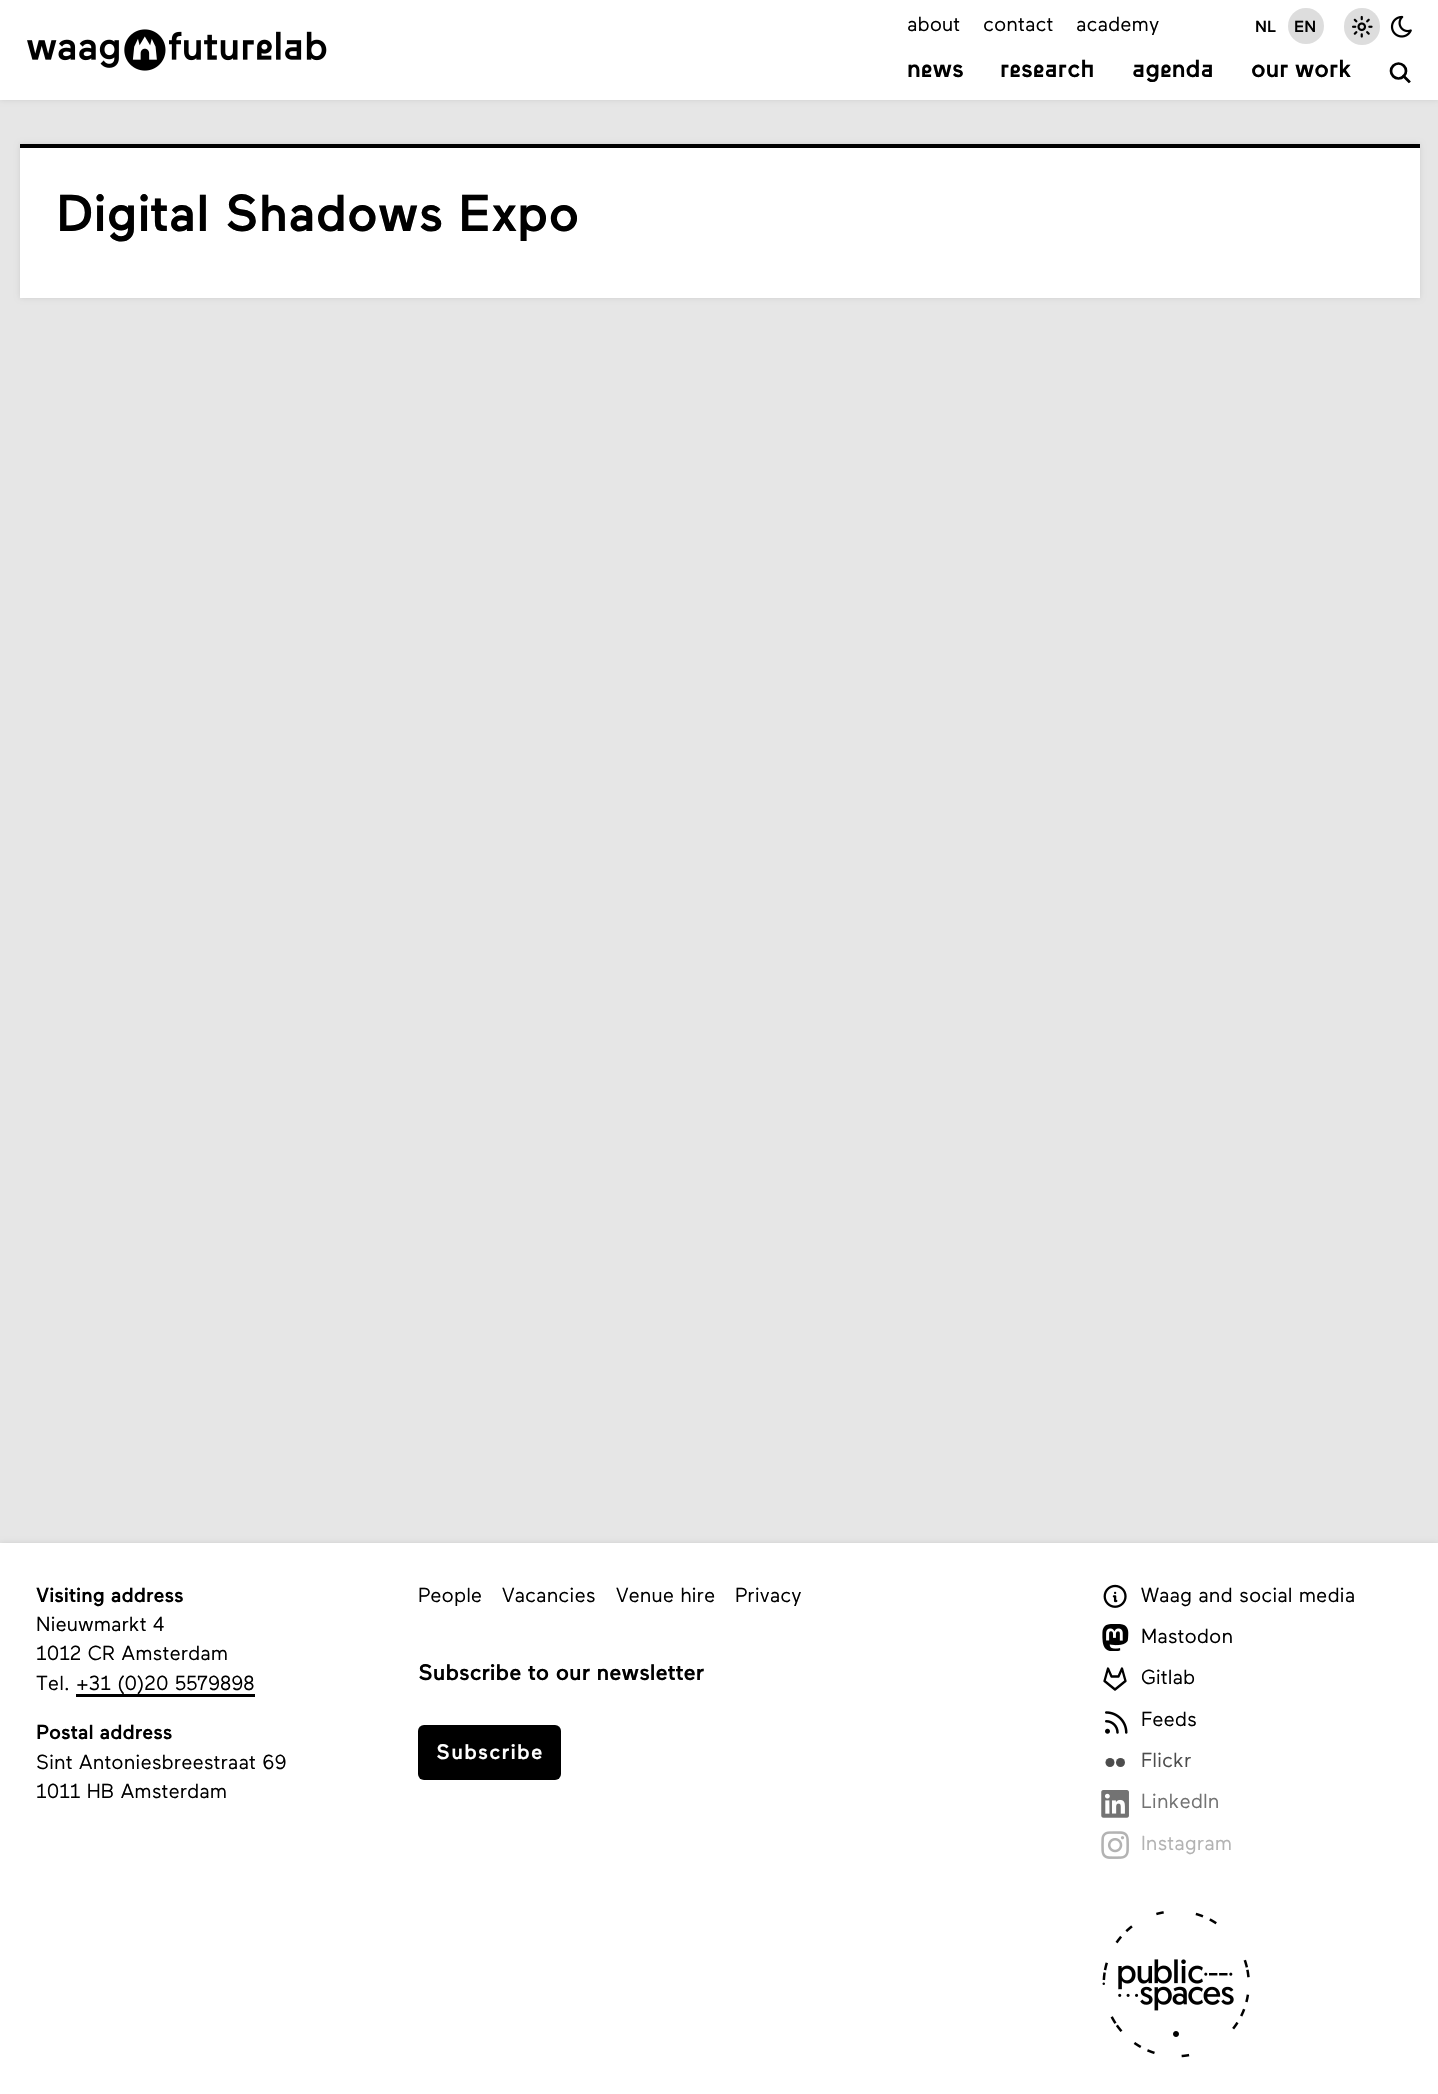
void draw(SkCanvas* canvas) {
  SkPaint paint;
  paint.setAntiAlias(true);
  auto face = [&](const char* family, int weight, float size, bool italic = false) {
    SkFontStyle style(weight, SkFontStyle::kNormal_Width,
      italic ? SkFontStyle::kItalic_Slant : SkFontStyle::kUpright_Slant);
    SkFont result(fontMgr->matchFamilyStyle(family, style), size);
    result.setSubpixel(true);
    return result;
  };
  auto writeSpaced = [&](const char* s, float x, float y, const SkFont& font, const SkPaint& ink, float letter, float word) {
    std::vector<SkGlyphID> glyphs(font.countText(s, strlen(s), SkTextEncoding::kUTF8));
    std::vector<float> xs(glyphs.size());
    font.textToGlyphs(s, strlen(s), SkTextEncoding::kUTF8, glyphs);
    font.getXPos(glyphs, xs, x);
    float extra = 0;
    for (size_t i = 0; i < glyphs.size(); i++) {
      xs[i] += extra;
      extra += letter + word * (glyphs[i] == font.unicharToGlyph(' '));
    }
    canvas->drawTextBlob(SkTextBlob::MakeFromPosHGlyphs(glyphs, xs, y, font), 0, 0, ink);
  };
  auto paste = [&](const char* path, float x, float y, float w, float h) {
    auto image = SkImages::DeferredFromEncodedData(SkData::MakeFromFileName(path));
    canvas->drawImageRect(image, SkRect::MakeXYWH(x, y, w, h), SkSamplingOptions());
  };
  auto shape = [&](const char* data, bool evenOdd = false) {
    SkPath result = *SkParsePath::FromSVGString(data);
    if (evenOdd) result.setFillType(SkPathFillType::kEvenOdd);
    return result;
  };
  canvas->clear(0xffe6e6e6);
  paint.setColor(0x1a000000);
  paint.setMaskFilter(SkMaskFilter::MakeBlur(kNormal_SkBlurStyle, 2.5f));
  canvas->drawRect(SkRect::MakeXYWH(0, 0, 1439, 100), paint);
  paint.setMaskFilter(nullptr);
  paint.setColor(0xffffffff);
  canvas->drawRect(SkRect::MakeXYWH(0, 0, 1438, 100), paint);
  paste("img/1.png", 27, 29, 300, 42);
  paint.setColor(0xffdddddd);
  canvas->drawCircle(1306, 26, 18, paint);
  canvas->drawRoundRect(SkRect::MakeXYWH(1344, 8, 36, 37), 18, 18, paint);
  paste("img/2.png", 1352, 15, 21, 23);
  paste("img/3.png", 1390, 15, 22, 23);
  paint.setStroke(true);
  paint.setStrokeWidth(2.7f);
  paint.setColor(0xff000000);
  canvas->drawCircle(1398.5f, 71, 7.5f, paint);
  canvas->save();
  canvas->clipPath(shape("M1401 60C1408 60 1414 66 1414 73C1414 80 1408 86 1401 86C1394 86 1388 80 1388 73C1388 66 1394 60 1401 60Z"), true);
  paint.setStrokeCap(SkPaint::kRound_Cap);
  paint.setStrokeJoin(SkPaint::kRound_Join);
  canvas->drawPath(shape("M1410 82.5L1403.5 76"), paint);
  canvas->restore();
  paint.setStroke(false);
  paint.setColor(0x1a000000);
  paint.setMaskFilter(SkMaskFilter::MakeBlur(kNormal_SkBlurStyle, 2.5f));
  canvas->drawRect(SkRect::MakeXYWH(20, 144, 1400, 154), paint);
  paint.setMaskFilter(nullptr);
  paint.setColor(0xffffffff);
  canvas->drawRect(SkRect::MakeXYWH(20, 148, 1400, 150), paint);
  paint.setColor(0xff000000);
  canvas->drawRect(SkRect::MakeXYWH(20, 144, 1400, 4), paint);
  paint.setColor(0x1a000000);
  paint.setMaskFilter(SkMaskFilter::MakeBlur(kNormal_SkBlurStyle, 2.5f));
  canvas->drawRect(SkRect::MakeXYWH(0, 1543, 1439, 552), paint);
  paint.setMaskFilter(nullptr);
  paint.setColor(0xffffffff);
  canvas->drawRect(SkRect::MakeXYWH(0, 1543, 1438, 551), paint);
  paint.setColor(0xff000000);
  canvas->drawRect(SkRect::MakeXYWH(76, 1694, 179, 3), paint);
  canvas->drawRoundRect(SkRect::MakeXYWH(418, 1725, 143, 55), 6, 6, paint);
  paste("img/4.png", 1103, 1584, 24, 24);
  paste("img/5.png", 1102, 1624, 27, 27);
  paint.setStroke(true);
  paint.setStrokeWidth(2.3f);
  canvas->drawPath(shape("M1125.5 1681L1115 1689.5L1104.5 1681L1108 1668.5L1111.5 1676.5H1118.5L1122 1668.5Z"), paint);
  paste("img/6.png", 1105, 1711, 23, 23);
  paint.setStroke(false);
  paint.setColor(0xff4d4d4d);
  canvas->drawCircle(1110, 1762.5f, 4.5f, paint);
  canvas->drawCircle(1120.5f, 1762.5f, 4.5f, paint);
  paste("img/7.png", 1101, 1790, 28, 28);
  paste("img/8.png", 1101, 1831, 28, 28);
  paste("img/9.png", 1102, 1911, 148, 147);
  auto f0 = face("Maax", 400, 20.25f);
  paint.setColor(0xff000000);
  {
    const struct { const char* s; float x, y; } items[] = {
      {"about", 907, 31},
      {"contact", 983, 31},
      {"academy", 1076, 31},
    };
    for (auto [s, x, y] : items) {
      canvas->drawString(s, x, y, f0, paint);
    }
  }
  auto f1 = face("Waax", 500, 16);
  canvas->drawString("NL", 1255, 32, f1, paint);
  canvas->drawString("EN", 1294, 32, f1, paint);
  auto f2 = face("Waax", 500, 24.75f);
  {
    const struct { const char* s; float x, y; } items[] = {
      {"news", 907, 77},
      {"research", 1000, 77},
      {"agenda", 1132, 77},
      {"our work", 1251, 77},
    };
    for (auto [s, x, y] : items) {
      canvas->drawString(s, x, y, f2, paint);
    }
  }
  auto f3 = face("Maax", 500, 51.8f);
  canvas->drawString("Digital Shadows Expo", 56, 231, f3, paint);
  auto f4 = face("Maax", 500, 20.25f);
  canvas->drawString("Visiting address", 36, 1602, f4, paint);
  {
    const struct { const char* s; float x, y; } items[] = {
      {"Nieuwmarkt 4", 36, 1631},
      {"1012 CR Amsterdam", 36, 1660},
      {"Tel.", 36, 1690},
      {"+31 (0)20 5579898", 76, 1690},
    };
    for (auto [s, x, y] : items) {
      canvas->drawString(s, x, y, f0, paint);
    }
  }
  canvas->drawString("Postal address", 36, 1739, f4, paint);
  {
    const struct { const char* s; float x, y; } items[] = {
      {"Sint Antoniesbreestraat 69", 36, 1769},
      {"1011 HB Amsterdam", 36, 1798},
      {"People", 418, 1602},
      {"Vacancies", 502, 1602},
      {"Venue hire", 616, 1602},
      {"Privacy", 735, 1602},
    };
    for (auto [s, x, y] : items) {
      canvas->drawString(s, x, y, f0, paint);
    }
  }
  auto f5 = face("Maax", 500, 22.5f);
  canvas->drawString("Subscribe to our newsletter", 418, 1680, f5, paint);
  auto f6 = face("Maax", 500, 21);
  paint.setColor(0xffffffff);
  writeSpaced("Subscribe", 436, 1759, f6, paint, 1.25f, 0);
  paint.setColor(0xff000000);
  {
    const struct { const char* s; float x, y; } items[] = {
      {"Waag and social media", 1141, 1602},
      {"Mastodon", 1141, 1643},
      {"Gitlab", 1141, 1684},
      {"Feeds", 1141, 1726},
    };
    for (auto [s, x, y] : items) {
      canvas->drawString(s, x, y, f0, paint);
    }
  }
  paint.setColor(0xff4d4d4d);
  canvas->drawString("Flickr", 1141, 1767, f0, paint);
  paint.setColor(0xff737373);
  canvas->drawString("LinkedIn", 1141, 1808, f0, paint);
  paint.setColor(0xffb3b3b3);
  canvas->drawString("Instagram", 1141, 1850, f0, paint);
}
